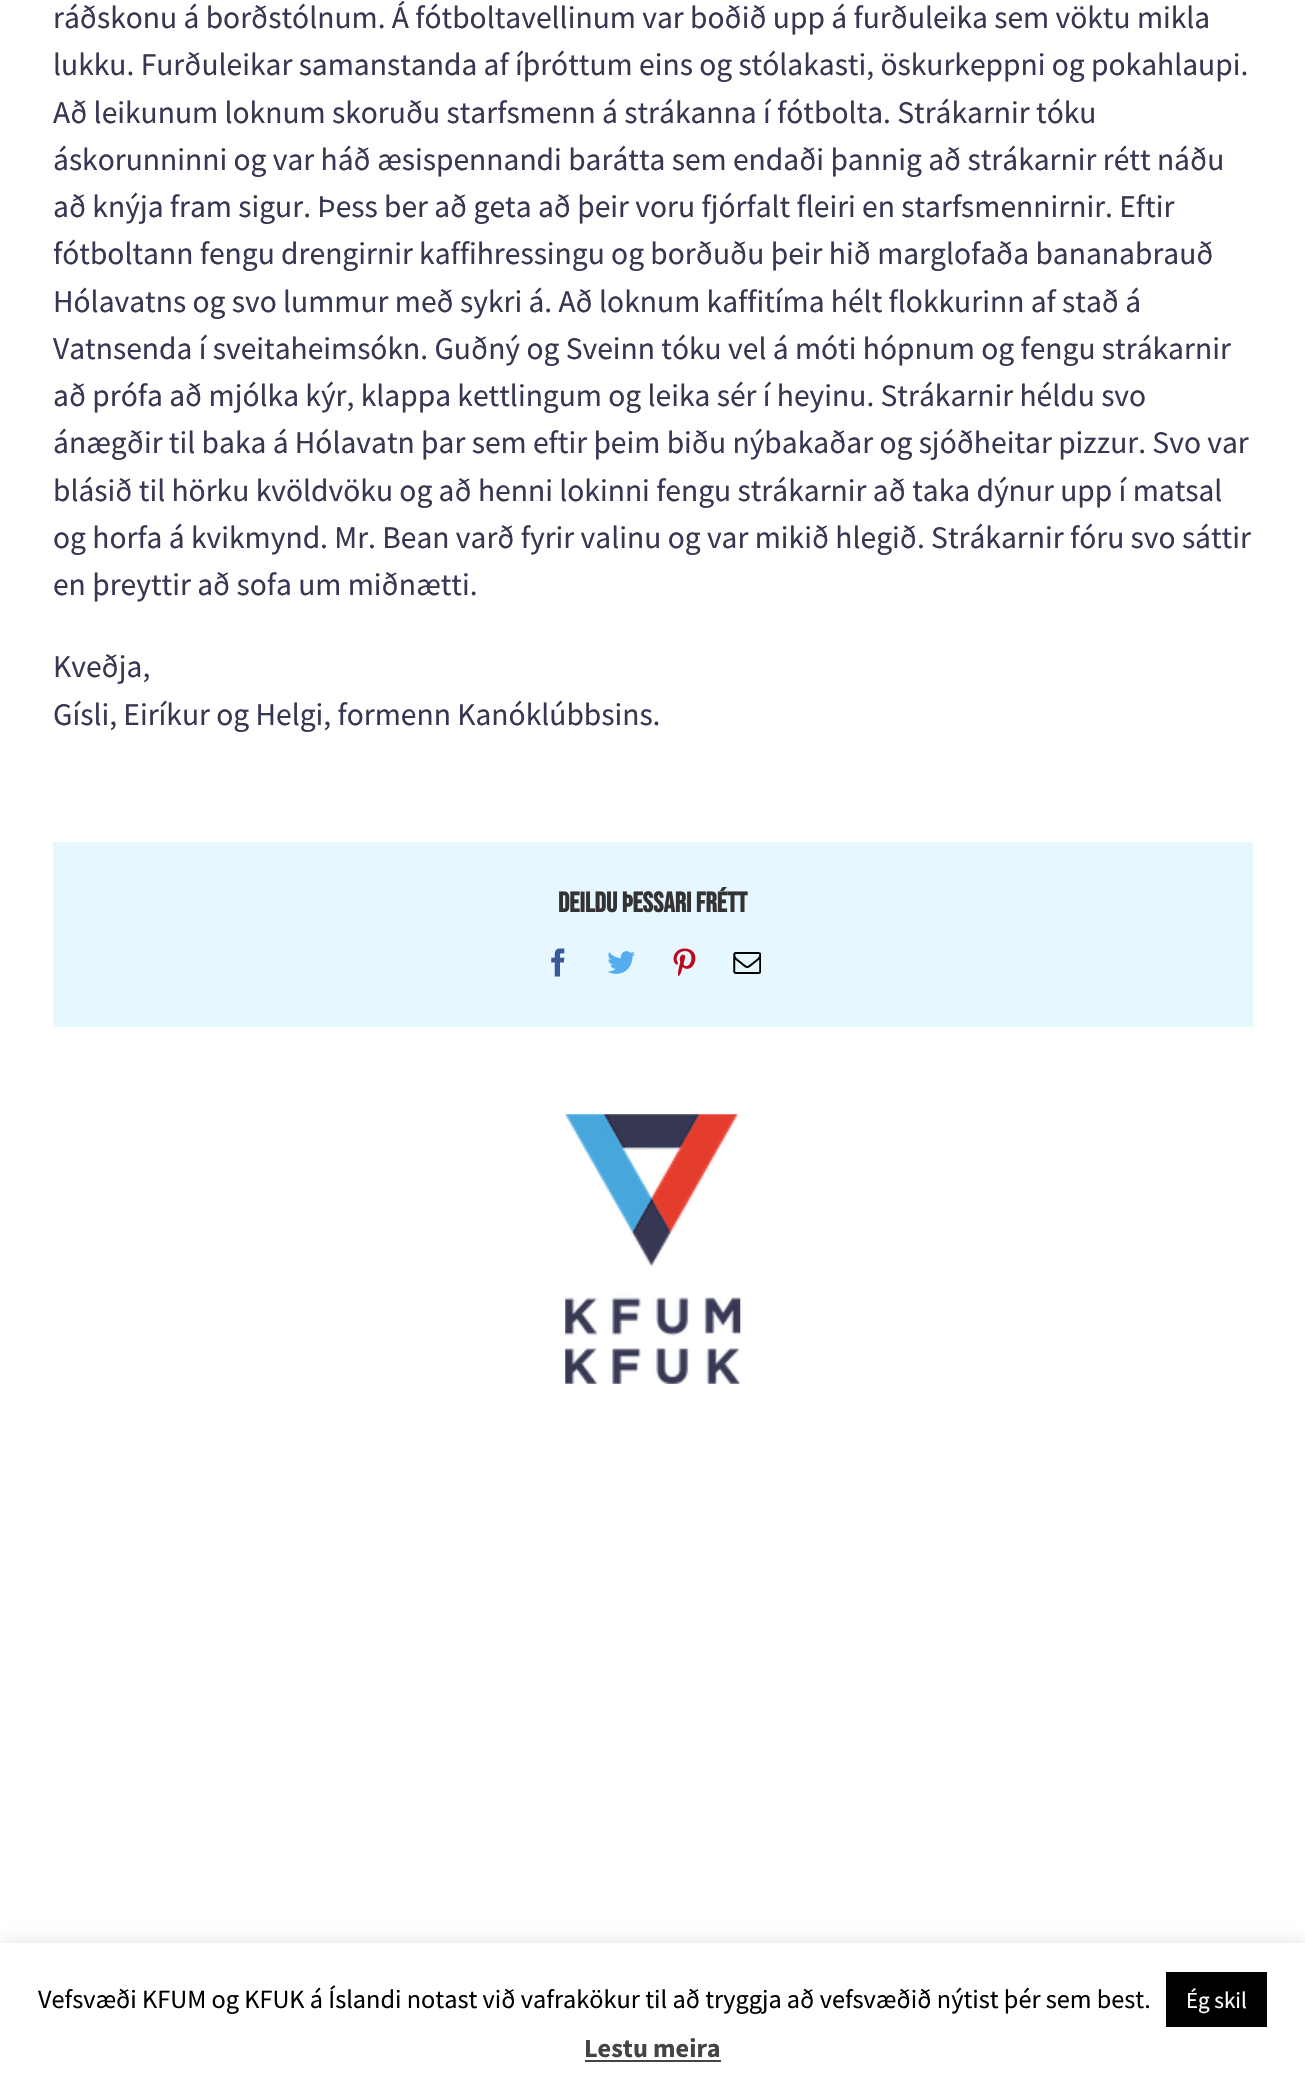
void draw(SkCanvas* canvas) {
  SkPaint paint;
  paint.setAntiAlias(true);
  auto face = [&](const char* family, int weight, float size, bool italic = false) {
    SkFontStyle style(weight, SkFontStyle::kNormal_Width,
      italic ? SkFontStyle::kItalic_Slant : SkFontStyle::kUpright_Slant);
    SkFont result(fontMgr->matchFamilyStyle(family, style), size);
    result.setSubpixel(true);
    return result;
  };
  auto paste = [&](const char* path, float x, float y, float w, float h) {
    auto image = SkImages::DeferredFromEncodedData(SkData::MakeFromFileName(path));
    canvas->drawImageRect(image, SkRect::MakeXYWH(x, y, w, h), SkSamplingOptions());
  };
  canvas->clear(0xffffffff);
  paint.setColor(0xffe6f7ff);
  canvas->drawRect(SkRect::MakeXYWH(53, 842, 1200, 185), paint);
  paste("img/1.png", 551, 948, 14, 29);
  paste("img/2.png", 607, 951, 28, 23);
  paste("img/3.png", 673, 948, 23, 29);
  paste("img/4.png", 733, 952, 28, 22);
  paste("img/5.png", 565, 1114, 176, 270);
  paint.setColor(0x4dacabab);
  paint.setMaskFilter(SkMaskFilter::MakeBlur(kNormal_SkBlurStyle, 9));
  canvas->drawRect(SkRect::MakeXYWH(0, 1941, 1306, 147), paint);
  paint.setMaskFilter(nullptr);
  {
    const struct { float x, y, w, h; SkColor color; } items[] = {
      {0, 1943, 1305, 145, 0xffffffff},
      {1166, 1972, 101, 55, 0xff000000},
      {585, 2060, 136, 2, 0xff444444},
    };
    for (auto [x, y, w, h, color] : items) {
      paint.setColor(color);
      canvas->drawRect(SkRect::MakeXYWH(x, y, w, h), paint);
    }
  }
  auto f0 = face("Source Sans Pro", 400, 31.5f);
  paint.setColor(0xff363752);
  {
    const struct { const char* s; float x, y; } items[] = {
      {"ráðskonu á borðstólnum. Á fótboltavellinum var boðið upp á furðuleika sem vöktu mikla", 53, 28},
      {"lukku. Furðuleikar samanstanda af íþróttum eins og stólakasti, öskurkeppni og pokahlaupi.", 53, 75},
      {"Að leikunum loknum skoruðu starfsmenn á strákanna í fótbolta. Strákarnir tóku", 53, 123},
      {"áskorunninni og var háð æsispennandi barátta sem endaði þannig að strákarnir rétt náðu", 53, 170},
      {"að knýja fram sigur. Þess ber að geta að þeir voru fjórfalt fleiri en starfsmennirnir. Eftir", 53, 217},
      {"fótboltann fengu drengirnir kaffihressingu og borðuðu þeir hið marglofaða bananabrauð", 53, 264},
      {"Hólavatns og svo lummur með sykri á. Að loknum kaffitíma hélt flokkurinn af stað á", 53, 312},
      {"Vatnsenda í sveitaheimsókn. Guðný og Sveinn tóku vel á móti hópnum og fengu strákarnir", 53, 359},
      {"að prófa að mjólka kýr, klappa kettlingum og leika sér í heyinu. Strákarnir héldu svo", 53, 406},
      {"ánægðir til baka á Hólavatn þar sem eftir þeim biðu nýbakaðar og sjóðheitar pizzur. Svo var", 53, 453},
      {"blásið til hörku kvöldvöku og að henni lokinni fengu strákarnir að taka dýnur upp í matsal", 53, 501},
      {"og horfa á kvikmynd. Mr. Bean varð fyrir valinu og var mikið hlegið. Strákarnir fóru svo sáttir", 53, 548},
      {"en þreyttir að sofa um miðnætti.", 53, 595},
      {"Kveðja,", 53, 677},
      {"Gísli, Eiríkur og Helgi, formenn Kanóklúbbsins.", 53, 725},
    };
    for (auto [s, x, y] : items) {
      canvas->drawString(s, x, y, f0, paint);
    }
  }
  auto f1 = face("Bebas Neue", 700, 28);
  paint.setColor(0xff333333);
  canvas->drawString("Deildu þessari frétt", 558, 912, f1, paint);
  auto f2 = face("Source Sans Pro", 400, 26.25f);
  paint.setColor(0xff000000);
  canvas->drawString("Vefsvæði KFUM og KFUK á Íslandi notast við vafrakökur til að tryggja að vefsvæðið nýtist þér sem best.", 38, 2008, f2, paint);
  auto f3 = face("Source Sans Pro", 400, 23);
  paint.setColor(0xffffffff);
  canvas->drawString("Ég skil", 1186, 2008, f3, paint);
  auto f4 = face("Source Sans Pro", 700, 26.25f);
  paint.setColor(0xff444444);
  canvas->drawString("Lestu meira", 584, 2057, f4, paint);
}
